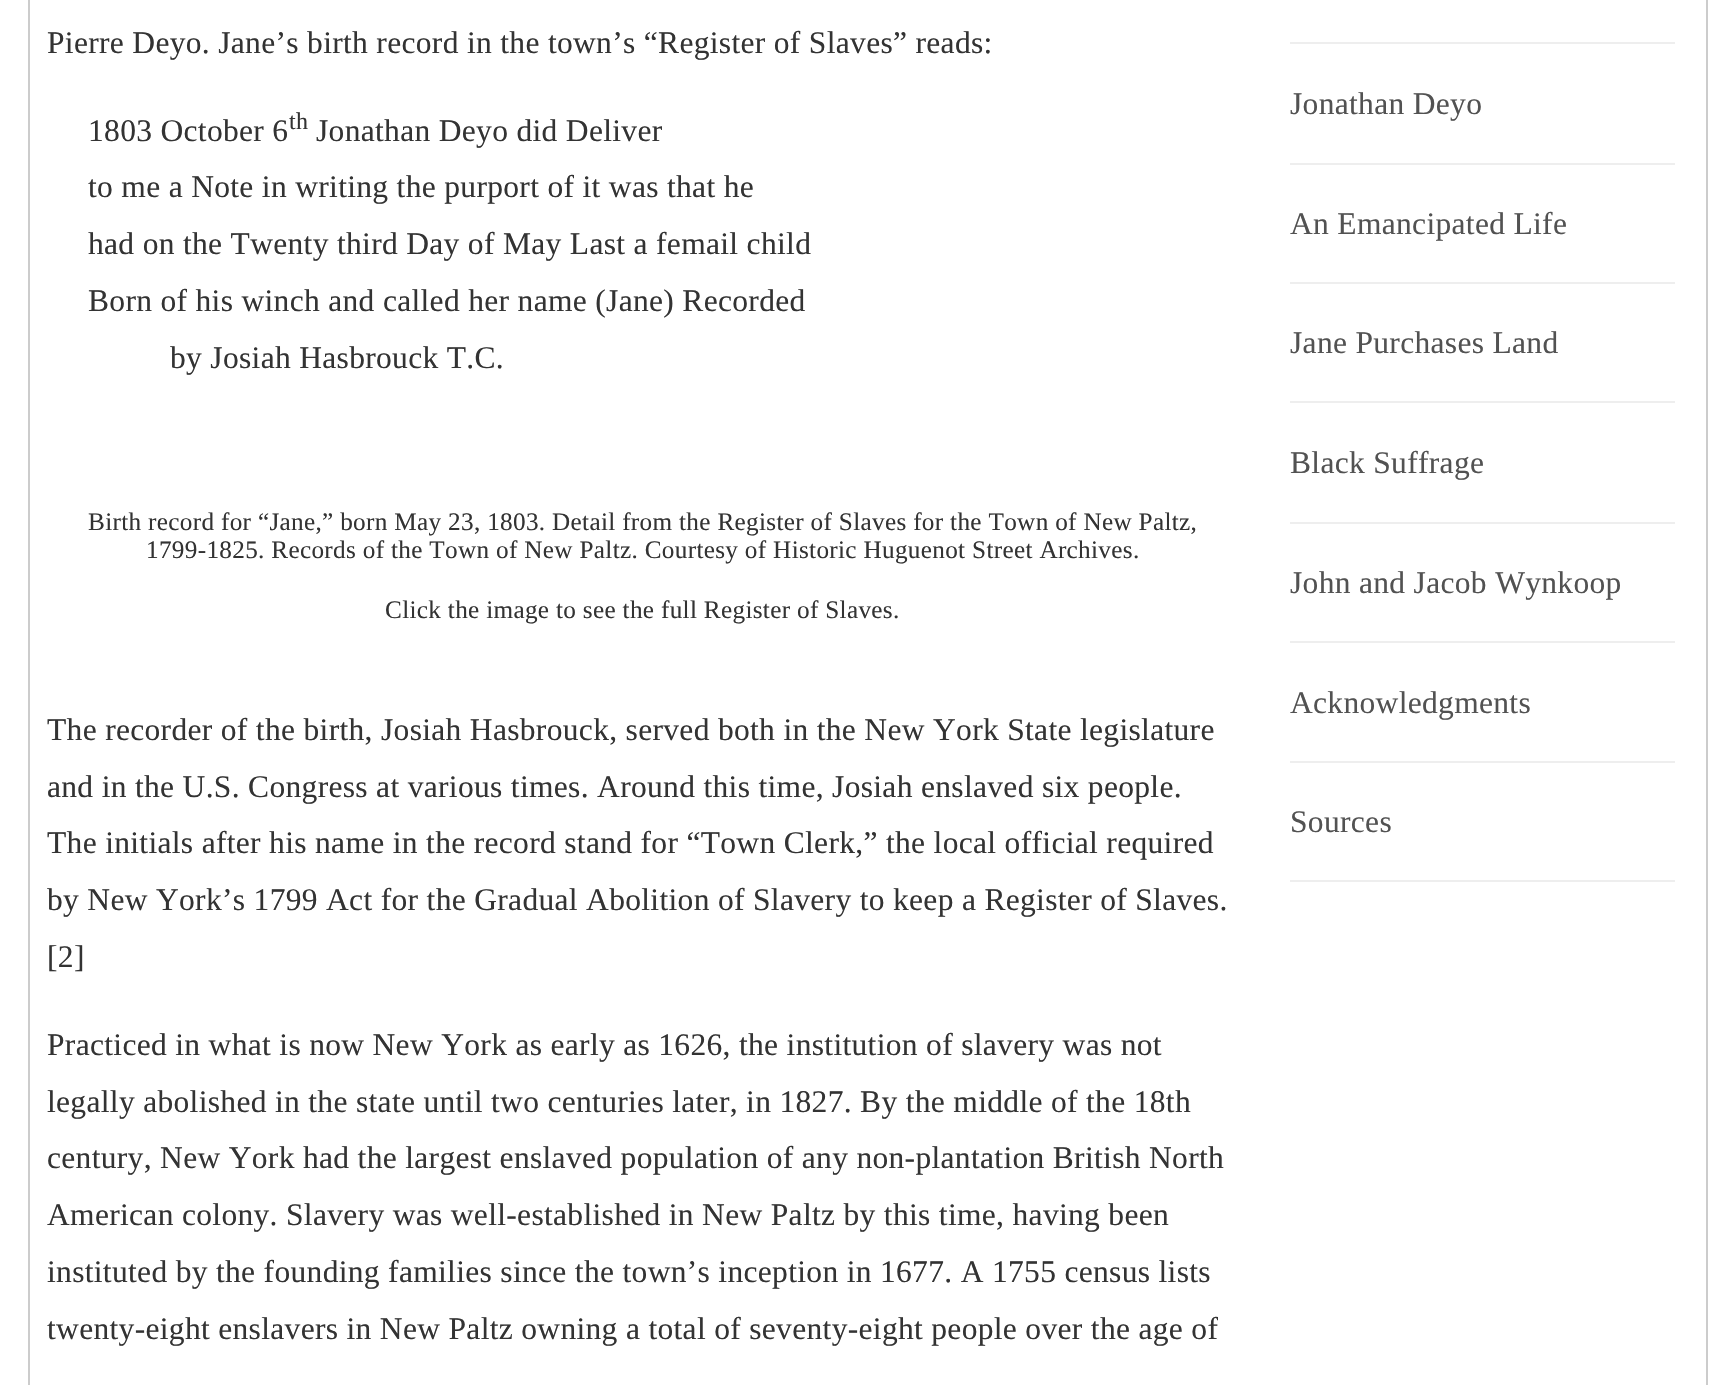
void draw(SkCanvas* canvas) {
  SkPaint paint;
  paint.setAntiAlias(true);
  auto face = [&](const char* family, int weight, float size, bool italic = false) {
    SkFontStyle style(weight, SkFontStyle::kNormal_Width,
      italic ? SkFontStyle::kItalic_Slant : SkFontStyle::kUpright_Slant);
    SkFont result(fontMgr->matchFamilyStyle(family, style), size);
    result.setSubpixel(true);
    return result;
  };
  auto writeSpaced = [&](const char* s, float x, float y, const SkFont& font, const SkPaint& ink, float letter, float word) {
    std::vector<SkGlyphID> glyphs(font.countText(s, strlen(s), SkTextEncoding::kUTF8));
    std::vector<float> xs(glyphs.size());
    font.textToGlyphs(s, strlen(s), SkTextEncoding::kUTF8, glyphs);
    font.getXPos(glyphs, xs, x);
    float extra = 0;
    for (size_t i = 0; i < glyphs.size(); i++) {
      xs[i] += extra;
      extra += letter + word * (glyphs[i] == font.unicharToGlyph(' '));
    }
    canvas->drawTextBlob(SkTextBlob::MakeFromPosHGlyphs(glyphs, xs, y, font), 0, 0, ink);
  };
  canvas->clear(0xffffffff);
  paint.setStroke(true);
  paint.setStrokeWidth(2);
  paint.setColor(0xffcccccc);
  canvas->drawRect(SkRect::MakeXYWH(29, -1, 1678, 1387), paint);
  paint.setStroke(false);
  {
    const struct { float x, y, w, h; SkColor color; } items[] = {
      {1290, 42, 385, 2, 0xffeeeeee},
      {1290, 163, 385, 2, 0xffeeeeee},
      {1290, 282, 385, 2, 0xffeeeeee},
      {1290, 401, 385, 2, 0xffeeeeee},
      {1290, 522, 385, 2, 0xffeeeeee},
      {1290, 641, 385, 2, 0xffeeeeee},
      {1290, 761, 385, 2, 0xffeeeeee},
      {1290, 880, 385, 2, 0xffeeeeee},
    };
    for (auto [x, y, w, h, color] : items) {
      paint.setColor(color);
      canvas->drawRect(SkRect::MakeXYWH(x, y, w, h), paint);
    }
  }
  auto f0 = face("Liberation Serif", 400, 31.5f);
  paint.setColor(0xff333333);
  writeSpaced("Pierre Deyo. Jane’s birth record in the town’s “Register of Slaves” reads:", 47, 53, f0, paint, 0.32f, 0);
  writeSpaced("1803 October 6", 88, 141, f0, paint, 0.32f, 0);
  auto f1 = face("Liberation Serif", 400, 24);
  writeSpaced("th", 289, 129, f1, paint, 0.32f, 0);
  {
    const struct { const char* s; float x, y; } items[] = {
      {"Jonathan Deyo did Deliver", 316, 141},
      {"to me a Note in writing the purport of it was that he", 88, 197},
      {"had on the Twenty third Day of May Last a femail child", 88, 254},
      {"Born of his winch and called her name (Jane) Recorded", 88, 311},
      {"by Josiah Hasbrouck T.C.", 170, 368},
    };
    for (auto [s, x, y] : items) {
      writeSpaced(s, x, y, f0, paint, 0.32f, 0);
    }
  }
  auto f2 = face("Liberation Serif", 400, 25.2f);
  {
    const struct { const char* s; float x, y; } items[] = {
      {"Birth record for “Jane,” born May 23, 1803. Detail from the Register of Slaves for the Town of New Paltz,", 88, 530},
      {"1799-1825. Records of the Town of New Paltz. Courtesy of Historic Huguenot Street Archives.", 146, 558},
      {"Click the image to see the full Register of Slaves.", 385, 618},
    };
    for (auto [s, x, y] : items) {
      writeSpaced(s, x, y, f2, paint, 0.32f, 0);
    }
  }
  {
    const struct { const char* s; float x, y; } items[] = {
      {"The recorder of the birth, Josiah Hasbrouck, served both in the New York State legislature", 47, 740},
      {"and in the U.S. Congress at various times. Around this time, Josiah enslaved six people.", 47, 797},
      {"The initials after his name in the record stand for “Town Clerk,” the local official required", 47, 853},
      {"by New York’s 1799 Act for the Gradual Abolition of Slavery to keep a Register of Slaves.", 47, 910},
      {"[2]", 47, 967},
      {"Practiced in what is now New York as early as 1626, the institution of slavery was not", 47, 1055},
      {"legally abolished in the state until two centuries later, in 1827. By the middle of the 18th", 47, 1112},
      {"century, New York had the largest enslaved population of any non-plantation British North", 47, 1168},
      {"American colony. Slavery was well-established in New Paltz by this time, having been", 47, 1225},
      {"instituted by the founding families since the town’s inception in 1677. A 1755 census lists", 47, 1282},
      {"twenty-eight enslavers in New Paltz owning a total of seventy-eight people over the age of", 47, 1339},
    };
    for (auto [s, x, y] : items) {
      writeSpaced(s, x, y, f0, paint, 0.32f, 0);
    }
  }
  paint.setColor(0xff525252);
  {
    const struct { const char* s; float x, y; } items[] = {
      {"Jonathan Deyo", 1290, 114},
      {"An Emancipated Life", 1290, 234},
      {"Jane Purchases Land", 1290, 353},
      {"Black Suffrage", 1290, 473},
      {"John and Jacob Wynkoop", 1290, 593},
      {"Acknowledgments", 1290, 713},
      {"Sources", 1290, 832},
    };
    for (auto [s, x, y] : items) {
      writeSpaced(s, x, y, f0, paint, 0.32f, 0);
    }
  }
}
